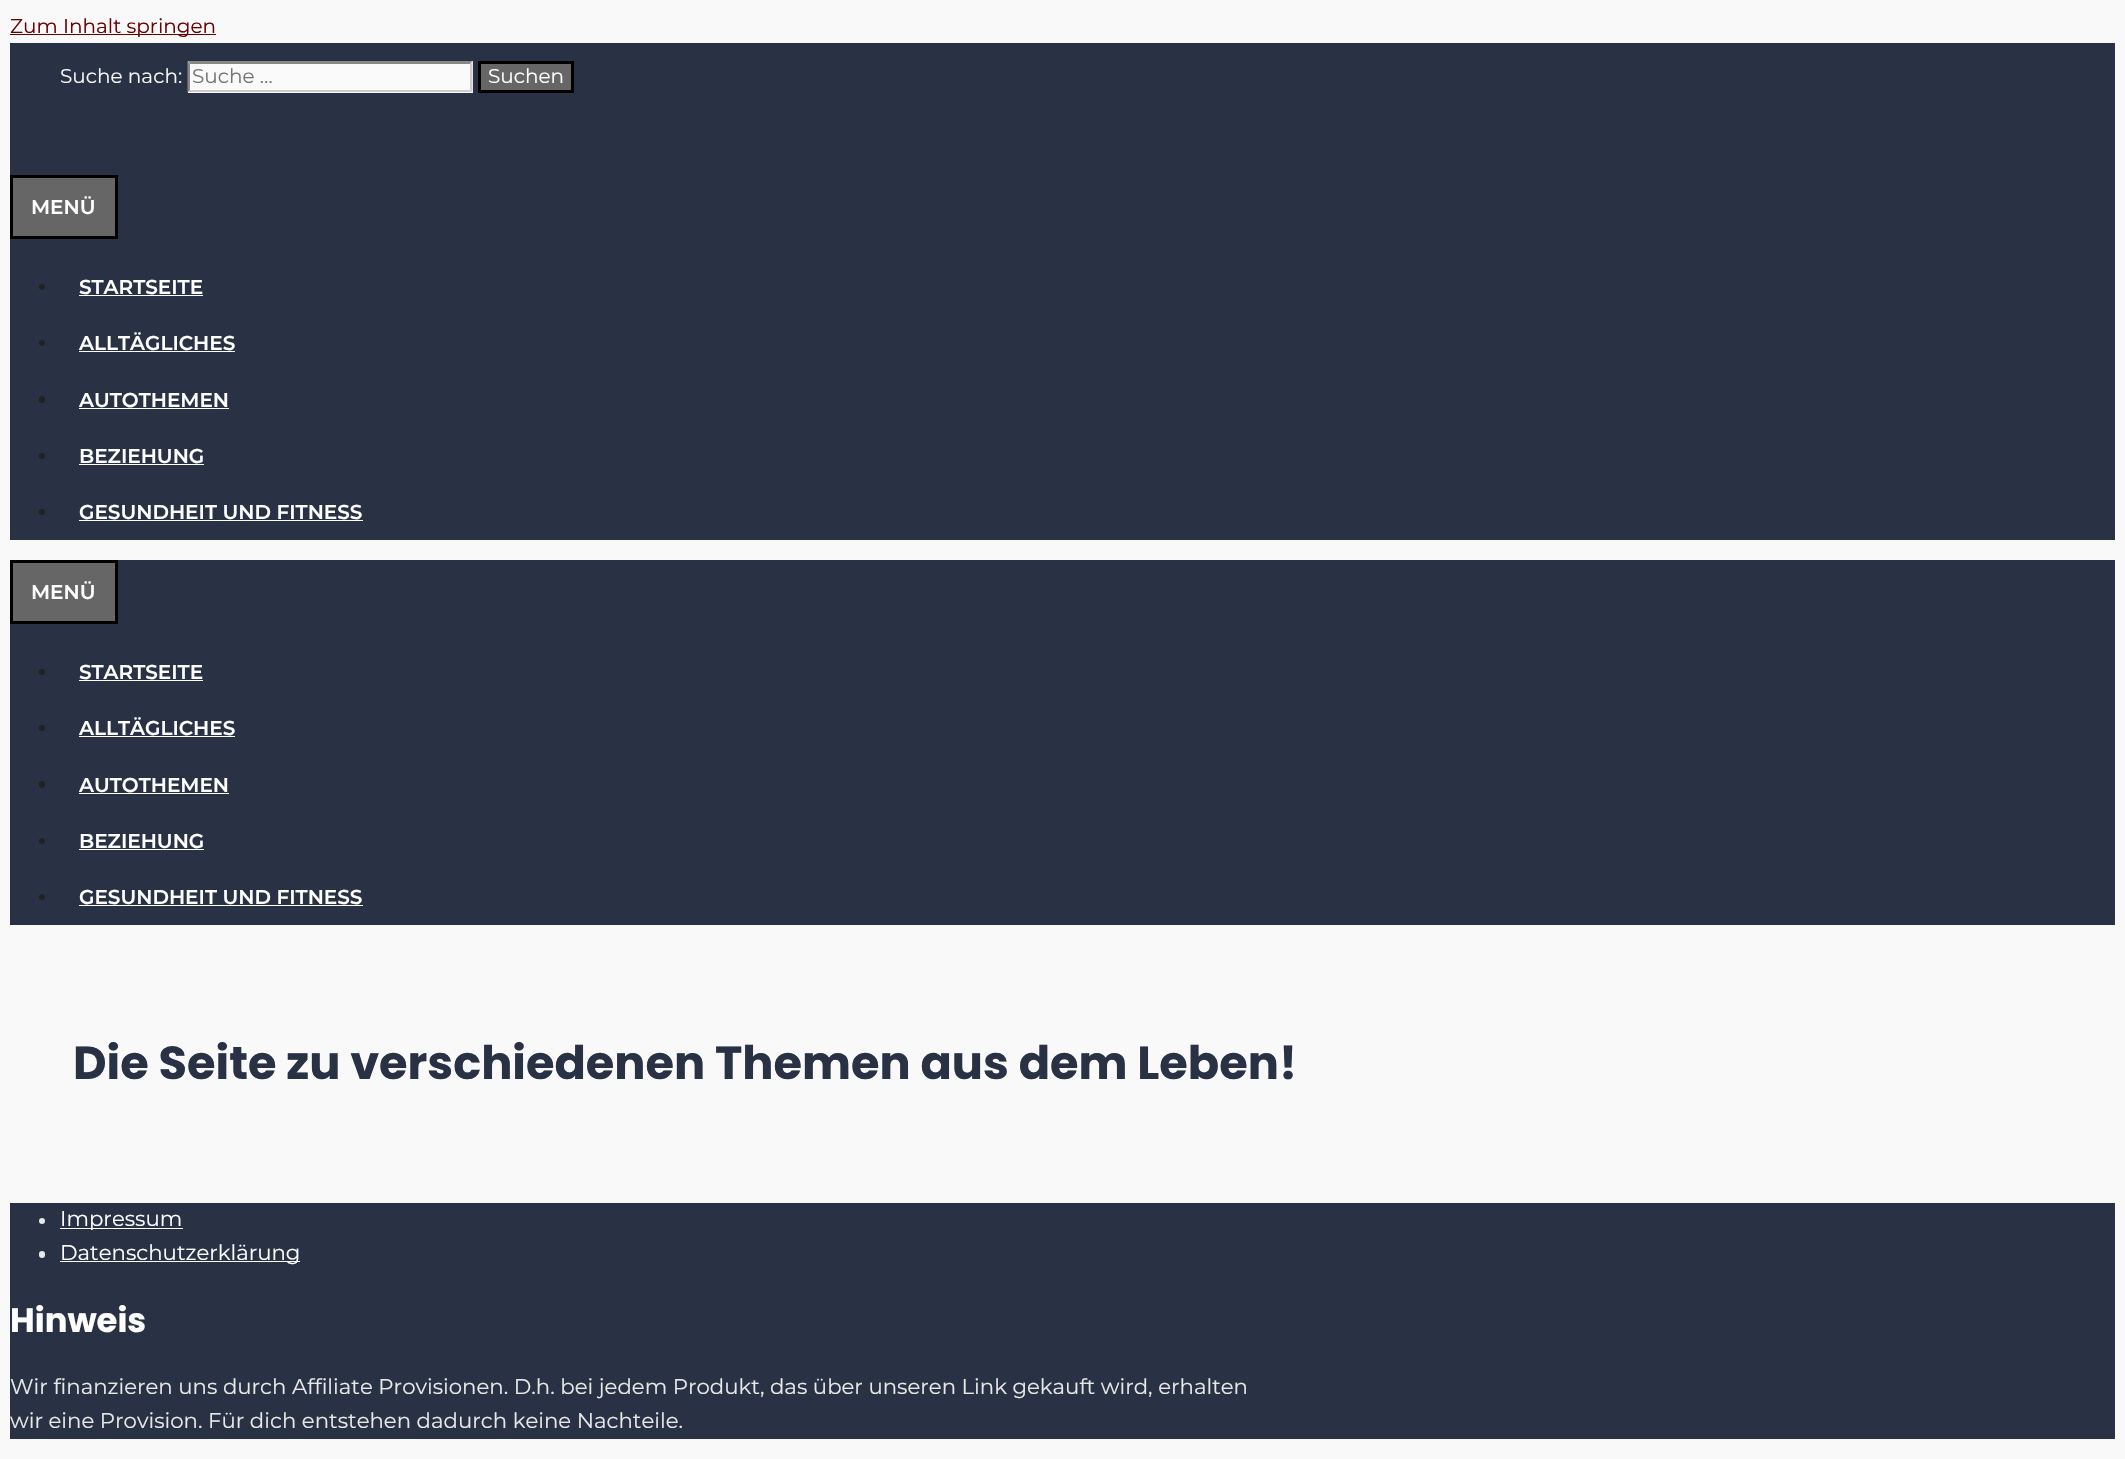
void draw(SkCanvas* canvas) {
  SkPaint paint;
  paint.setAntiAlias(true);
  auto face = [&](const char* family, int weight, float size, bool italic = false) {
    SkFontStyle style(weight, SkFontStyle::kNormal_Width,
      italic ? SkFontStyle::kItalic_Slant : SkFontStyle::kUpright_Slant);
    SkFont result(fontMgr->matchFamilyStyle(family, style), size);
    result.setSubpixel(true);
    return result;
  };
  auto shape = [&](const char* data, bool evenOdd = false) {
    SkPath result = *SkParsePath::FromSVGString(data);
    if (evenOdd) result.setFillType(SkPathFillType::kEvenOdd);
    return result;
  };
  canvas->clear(0xfff9f9f9);
  {
    const struct { float x, y, w, h; SkColor color; } items[] = {
      {10, 34, 206, 1, 0xff6b0000},
      {10, 43, 2105, 497, 0xff283244},
      {188, 61, 285, 32, 0xfffafafa},
    };
    for (auto [x, y, w, h, color] : items) {
      paint.setColor(color);
      canvas->drawRect(SkRect::MakeXYWH(x, y, w, h), paint);
    }
  }
  paint.setColor(0xff888888);
  canvas->drawPath(shape("M188 61H472L470 64H190Z"), paint);
  paint.setColor(0xffcccccc);
  canvas->drawPath(shape("M472.5 61V92.5L470 90V64Z"), paint);
  canvas->drawPath(shape("M472 92H188L190 90H470Z"), paint);
  paint.setColor(0xff888888);
  canvas->drawPath(shape("M187.5 92.5V61L190 64V90Z"), paint);
  paint.setColor(0xff666666);
  canvas->drawRect(SkRect::MakeXYWH(479.5f, 62.5f, 93, 29), paint);
  paint.setStroke(true);
  paint.setStrokeWidth(3);
  paint.setColor(0xff000000);
  canvas->drawRect(SkRect::MakeXYWH(479.5f, 62.5f, 93, 29), paint);
  paint.setStroke(false);
  paint.setColor(0xff666666);
  canvas->drawRect(SkRect::MakeXYWH(11.5f, 176.5f, 105, 61), paint);
  paint.setStroke(true);
  paint.setColor(0xff000000);
  canvas->drawRect(SkRect::MakeXYWH(11.5f, 176.5f, 105, 61), paint);
  paint.setStroke(false);
  paint.setColor(0xff212121);
  canvas->drawCircle(42, 287, 3, paint);
  paint.setColor(0xffffffff);
  canvas->drawRect(SkRect::MakeXYWH(79, 295, 124, 1), paint);
  paint.setColor(0xff212121);
  canvas->drawCircle(42, 343, 3, paint);
  paint.setColor(0xffffffff);
  canvas->drawRect(SkRect::MakeXYWH(79, 351, 156, 1), paint);
  paint.setColor(0xff212121);
  canvas->drawRoundRect(SkRect::MakeXYWH(39, 396, 6, 7), 3, 3, paint);
  paint.setColor(0xffffffff);
  canvas->drawRect(SkRect::MakeXYWH(79, 408, 150, 1), paint);
  paint.setColor(0xff212121);
  canvas->drawCircle(42, 456, 3, paint);
  paint.setColor(0xffffffff);
  canvas->drawRect(SkRect::MakeXYWH(79, 464, 125, 1), paint);
  paint.setColor(0xff212121);
  canvas->drawCircle(42, 512, 3, paint);
  paint.setColor(0xffffffff);
  canvas->drawRect(SkRect::MakeXYWH(79, 520, 284, 1), paint);
  paint.setColor(0xff283244);
  canvas->drawRect(SkRect::MakeXYWH(10, 560, 2105, 365), paint);
  paint.setColor(0xff666666);
  canvas->drawRect(SkRect::MakeXYWH(11.5f, 561.5f, 105, 61), paint);
  paint.setStroke(true);
  paint.setColor(0xff000000);
  canvas->drawRect(SkRect::MakeXYWH(11.5f, 561.5f, 105, 61), paint);
  paint.setStroke(false);
  paint.setColor(0xff212121);
  canvas->drawCircle(42, 672, 3, paint);
  paint.setColor(0xffffffff);
  canvas->drawRect(SkRect::MakeXYWH(79, 680, 124, 1), paint);
  paint.setColor(0xff212121);
  canvas->drawCircle(42, 728, 3, paint);
  paint.setColor(0xffffffff);
  canvas->drawRect(SkRect::MakeXYWH(79, 736, 156, 1), paint);
  paint.setColor(0xff212121);
  canvas->drawRoundRect(SkRect::MakeXYWH(39, 781, 6, 7), 3, 3, paint);
  paint.setColor(0xffffffff);
  canvas->drawRect(SkRect::MakeXYWH(79, 793, 150, 1), paint);
  paint.setColor(0xff212121);
  canvas->drawCircle(42, 841, 3, paint);
  paint.setColor(0xffffffff);
  canvas->drawRect(SkRect::MakeXYWH(79, 849, 125, 1), paint);
  paint.setColor(0xff212121);
  canvas->drawCircle(42, 897, 3, paint);
  paint.setColor(0xffffffff);
  canvas->drawRect(SkRect::MakeXYWH(79, 905, 284, 1), paint);
  paint.setColor(0xff283244);
  canvas->drawRect(SkRect::MakeXYWH(10, 1203, 2105, 236), paint);
  paint.setColor(0xffe8e8e8);
  canvas->drawCircle(42, 1221, 3, paint);
  paint.setColor(0xffffffff);
  canvas->drawRect(SkRect::MakeXYWH(60, 1228, 123, 1), paint);
  paint.setColor(0xffe8e8e8);
  canvas->drawRoundRect(SkRect::MakeXYWH(39, 1251, 6, 7), 3, 3, paint);
  paint.setColor(0xffffffff);
  canvas->drawRect(SkRect::MakeXYWH(60, 1261, 240, 1), paint);
  auto f0 = face("Montserrat", 400, 20);
  paint.setColor(0xff6b0000);
  canvas->drawString("Zum Inhalt springen", 10, 33, f0, paint);
  paint.setColor(0xfff7f7f7);
  canvas->drawString("Suche nach:", 60, 83, f0, paint);
  paint.setColor(0xff757575);
  canvas->drawString("Suche …", 192, 83, f0, paint);
  paint.setColor(0xffffffff);
  canvas->drawString("Suchen", 488, 83, f0, paint);
  auto f1 = face("Montserrat", 600, 20);
  {
    const struct { const char* s; float x, y; } items[] = {
      {"MENÜ", 31, 214},
      {"STARTSEITE", 79, 294},
      {"ALLTÄGLICHES", 79, 350},
      {"AUTOTHEMEN", 79, 407},
      {"BEZIEHUNG", 79, 463},
      {"GESUNDHEIT UND FITNESS", 79, 519},
      {"MENÜ", 31, 599},
      {"STARTSEITE", 79, 679},
      {"ALLTÄGLICHES", 79, 735},
      {"AUTOTHEMEN", 79, 792},
      {"BEZIEHUNG", 79, 848},
      {"GESUNDHEIT UND FITNESS", 79, 904},
    };
    for (auto [s, x, y] : items) {
      canvas->drawString(s, x, y, f1, paint);
    }
  }
  auto f2 = face("Poppins", 700, 46.25f);
  paint.setColor(0xff283244);
  canvas->drawString("Die Seite zu verschiedenen Themen aus dem Leben!", 73, 1079, f2, paint);
  auto f3 = face("Montserrat", 400, 21.25f);
  paint.setColor(0xffffffff);
  canvas->drawString("Impressum", 60, 1226, f3, paint);
  canvas->drawString("Datenschutzerklärung", 60, 1260, f3, paint);
  auto f4 = face("Poppins", 700, 33.75f);
  canvas->drawString("Hinweis", 10, 1332, f4, paint);
  paint.setColor(0xffe8e8e8);
  canvas->drawString("Wir finanzieren uns durch Affiliate Provisionen. D.h. bei jedem Produkt, das über unseren Link gekauft wird, erhalten", 10, 1394, f3, paint);
  canvas->drawString("wir eine Provision. Für dich entstehen dadurch keine Nachteile.", 10, 1428, f3, paint);
}
